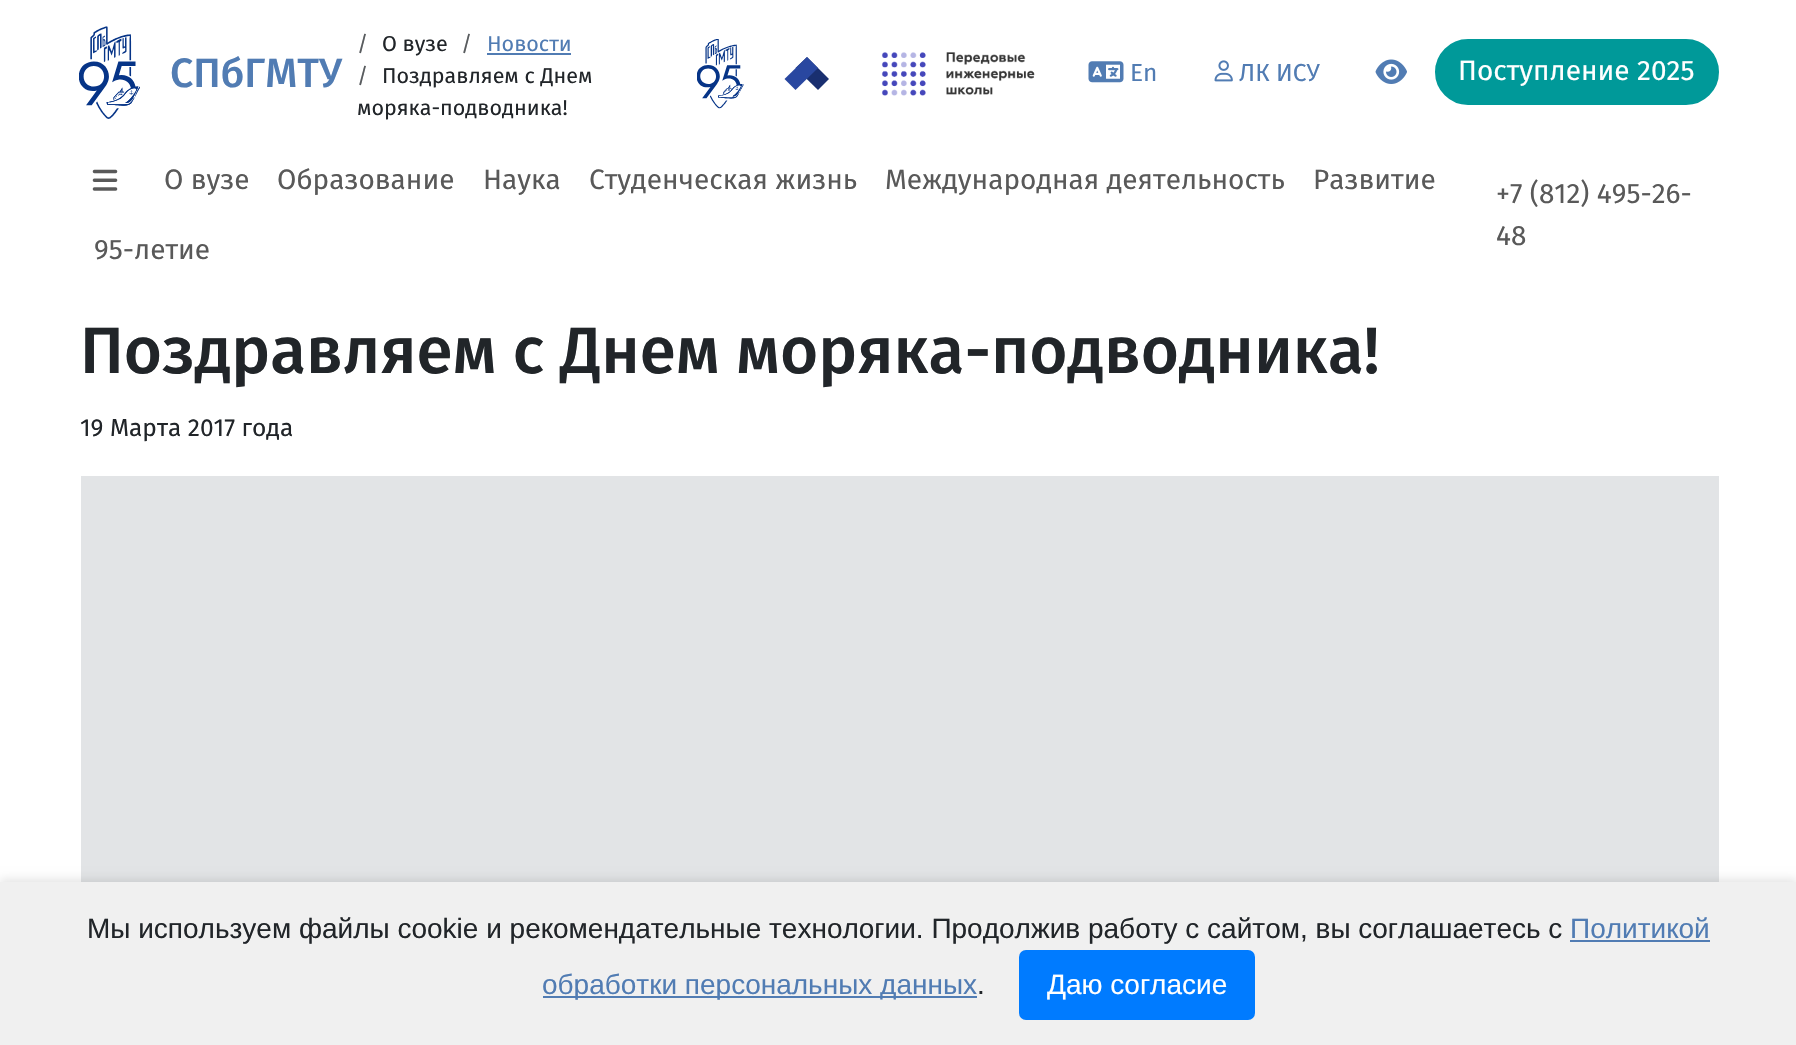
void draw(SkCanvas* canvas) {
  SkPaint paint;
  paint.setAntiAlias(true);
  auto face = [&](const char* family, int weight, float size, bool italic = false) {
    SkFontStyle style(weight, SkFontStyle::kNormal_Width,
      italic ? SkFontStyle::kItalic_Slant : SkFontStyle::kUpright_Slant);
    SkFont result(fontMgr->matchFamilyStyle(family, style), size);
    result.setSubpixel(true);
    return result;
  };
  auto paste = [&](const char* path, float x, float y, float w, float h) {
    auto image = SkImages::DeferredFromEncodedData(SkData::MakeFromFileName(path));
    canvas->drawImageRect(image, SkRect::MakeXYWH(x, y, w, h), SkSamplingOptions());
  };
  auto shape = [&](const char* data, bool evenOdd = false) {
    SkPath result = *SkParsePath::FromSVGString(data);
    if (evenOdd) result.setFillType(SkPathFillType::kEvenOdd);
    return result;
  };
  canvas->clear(0xffffffff);
  paste("img/1.png", 79, 26, 61, 93);
  paint.setColor(0xff517cb3);
  canvas->drawRect(SkRect::MakeXYWH(487, 53, 84, 2), paint);
  paste("img/2.png", 697, 39, 47, 70);
  paint.setColor(0xff192f70);
  canvas->drawPath(shape("M829 79L818 90L795.5 68L807 57Z"), paint);
  paint.setColor(0xff2947a0);
  canvas->drawPath(shape("M818 68L795.5 90L784.5 79L807 57Z"), paint);
  paste("img/3.png", 881, 52, 154, 44);
  paste("img/4.png", 1088, 61, 36, 22);
  paste("img/5.png", 1214, 60, 19, 22);
  paste("img/6.png", 1375, 59, 32, 25);
  paint.setColor(0xff009999);
  canvas->drawRoundRect(SkRect::MakeXYWH(1436, 40, 282, 64), 32, 32, paint);
  paint.setStroke(true);
  paint.setStrokeWidth(2);
  canvas->drawRoundRect(SkRect::MakeXYWH(1436, 40, 282, 64), 32, 32, paint);
  paste("img/7.png", 92, 169, 26, 22);
  paint.setStroke(false);
  paint.setColor(0xffe2e4e6);
  canvas->drawRect(SkRect::MakeXYWH(81, 476, 1638, 406), paint);
  paint.setColor(0x1a000000);
  paint.setMaskFilter(SkMaskFilter::MakeBlur(kNormal_SkBlurStyle, 4.5f));
  canvas->drawRect(SkRect::MakeXYWH(0, 879, 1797, 164), paint);
  paint.setMaskFilter(nullptr);
  {
    const struct { float x, y, w, h; SkColor color; } items[] = {
      {0, 882, 1796, 163, 0xfff0f0f0},
      {1570, 940, 140, 2, 0xff517cb3},
      {543, 996, 434, 2, 0xff517cb3},
    };
    for (auto [x, y, w, h, color] : items) {
      paint.setColor(color);
      canvas->drawRect(SkRect::MakeXYWH(x, y, w, h), paint);
    }
  }
  paint.setColor(0xff007bff);
  canvas->drawRoundRect(SkRect::MakeXYWH(1019, 950, 236, 70), 7, 7, paint);
  auto f0 = face("Fira Sans", 500, 41);
  paint.setColor(0xff517cb3);
  canvas->drawString("СПбГМТУ", 170, 87, f0, paint);
  auto f1 = face("Fira Sans", 400, 21.5f);
  paint.setColor(0xff595c5f);
  canvas->drawString("/", 357, 51, f1, paint);
  paint.setColor(0xff212529);
  canvas->drawString("О вузе", 382, 51, f1, paint);
  paint.setColor(0xff595c5f);
  canvas->drawString("/", 461, 51, f1, paint);
  paint.setColor(0xff517cb3);
  canvas->drawString("Новости", 487, 51, f1, paint);
  paint.setColor(0xff595c5f);
  canvas->drawString("/", 357, 83, f1, paint);
  paint.setColor(0xff212529);
  canvas->drawString("Поздравляем с Днем", 382, 83, f1, paint);
  canvas->drawString("моряка-подводника!", 357, 115, f1, paint);
  auto f2 = face("Fira Sans", 400, 24.5f);
  paint.setColor(0xff517cb3);
  canvas->drawString("En", 1130, 81, f2, paint);
  canvas->drawString("ЛК ИСУ", 1239, 81, f2, paint);
  auto f3 = face("Fira Sans", 400, 28);
  paint.setColor(0xffffffff);
  canvas->drawString("Поступление 2025", 1458, 80, f3, paint);
  paint.setColor(0xff595959);
  {
    const struct { const char* s; float x, y; } items[] = {
      {"О вузе", 164, 189},
      {"Образование", 277, 189},
      {"Наука", 483, 189},
      {"Студенческая жизнь", 589, 189},
      {"Международная деятельность", 885, 189},
      {"Развитие", 1313, 189},
      {"95-летие", 94, 259},
      {"+7 (812) 495-26-", 1496, 203},
      {"48", 1496, 245},
    };
    for (auto [s, x, y] : items) {
      canvas->drawString(s, x, y, f3, paint);
    }
  }
  auto f4 = face("Fira Sans", 500, 65.5f);
  paint.setColor(0xff212529);
  canvas->drawString("Поздравляем с Днем моряка-подводника!", 80, 373, f4, paint);
  canvas->drawString("19 Марта 2017 года", 80, 436, f2, paint);
  auto f5 = face("Liberation Sans", 400, 28);
  canvas->drawString("Мы используем файлы cookie и рекомендательные технологии. Продолжив работу с сайтом, вы соглашаетесь с", 87, 938, f5, paint);
  paint.setColor(0xff517cb3);
  canvas->drawString("Политикой", 1570, 938, f5, paint);
  canvas->drawString("обработки персональных данных", 542, 994, f5, paint);
  paint.setColor(0xff212529);
  canvas->drawString(".", 977, 994, f5, paint);
  paint.setColor(0xffffffff);
  canvas->drawString("Даю согласие", 1047, 994, f5, paint);
}
